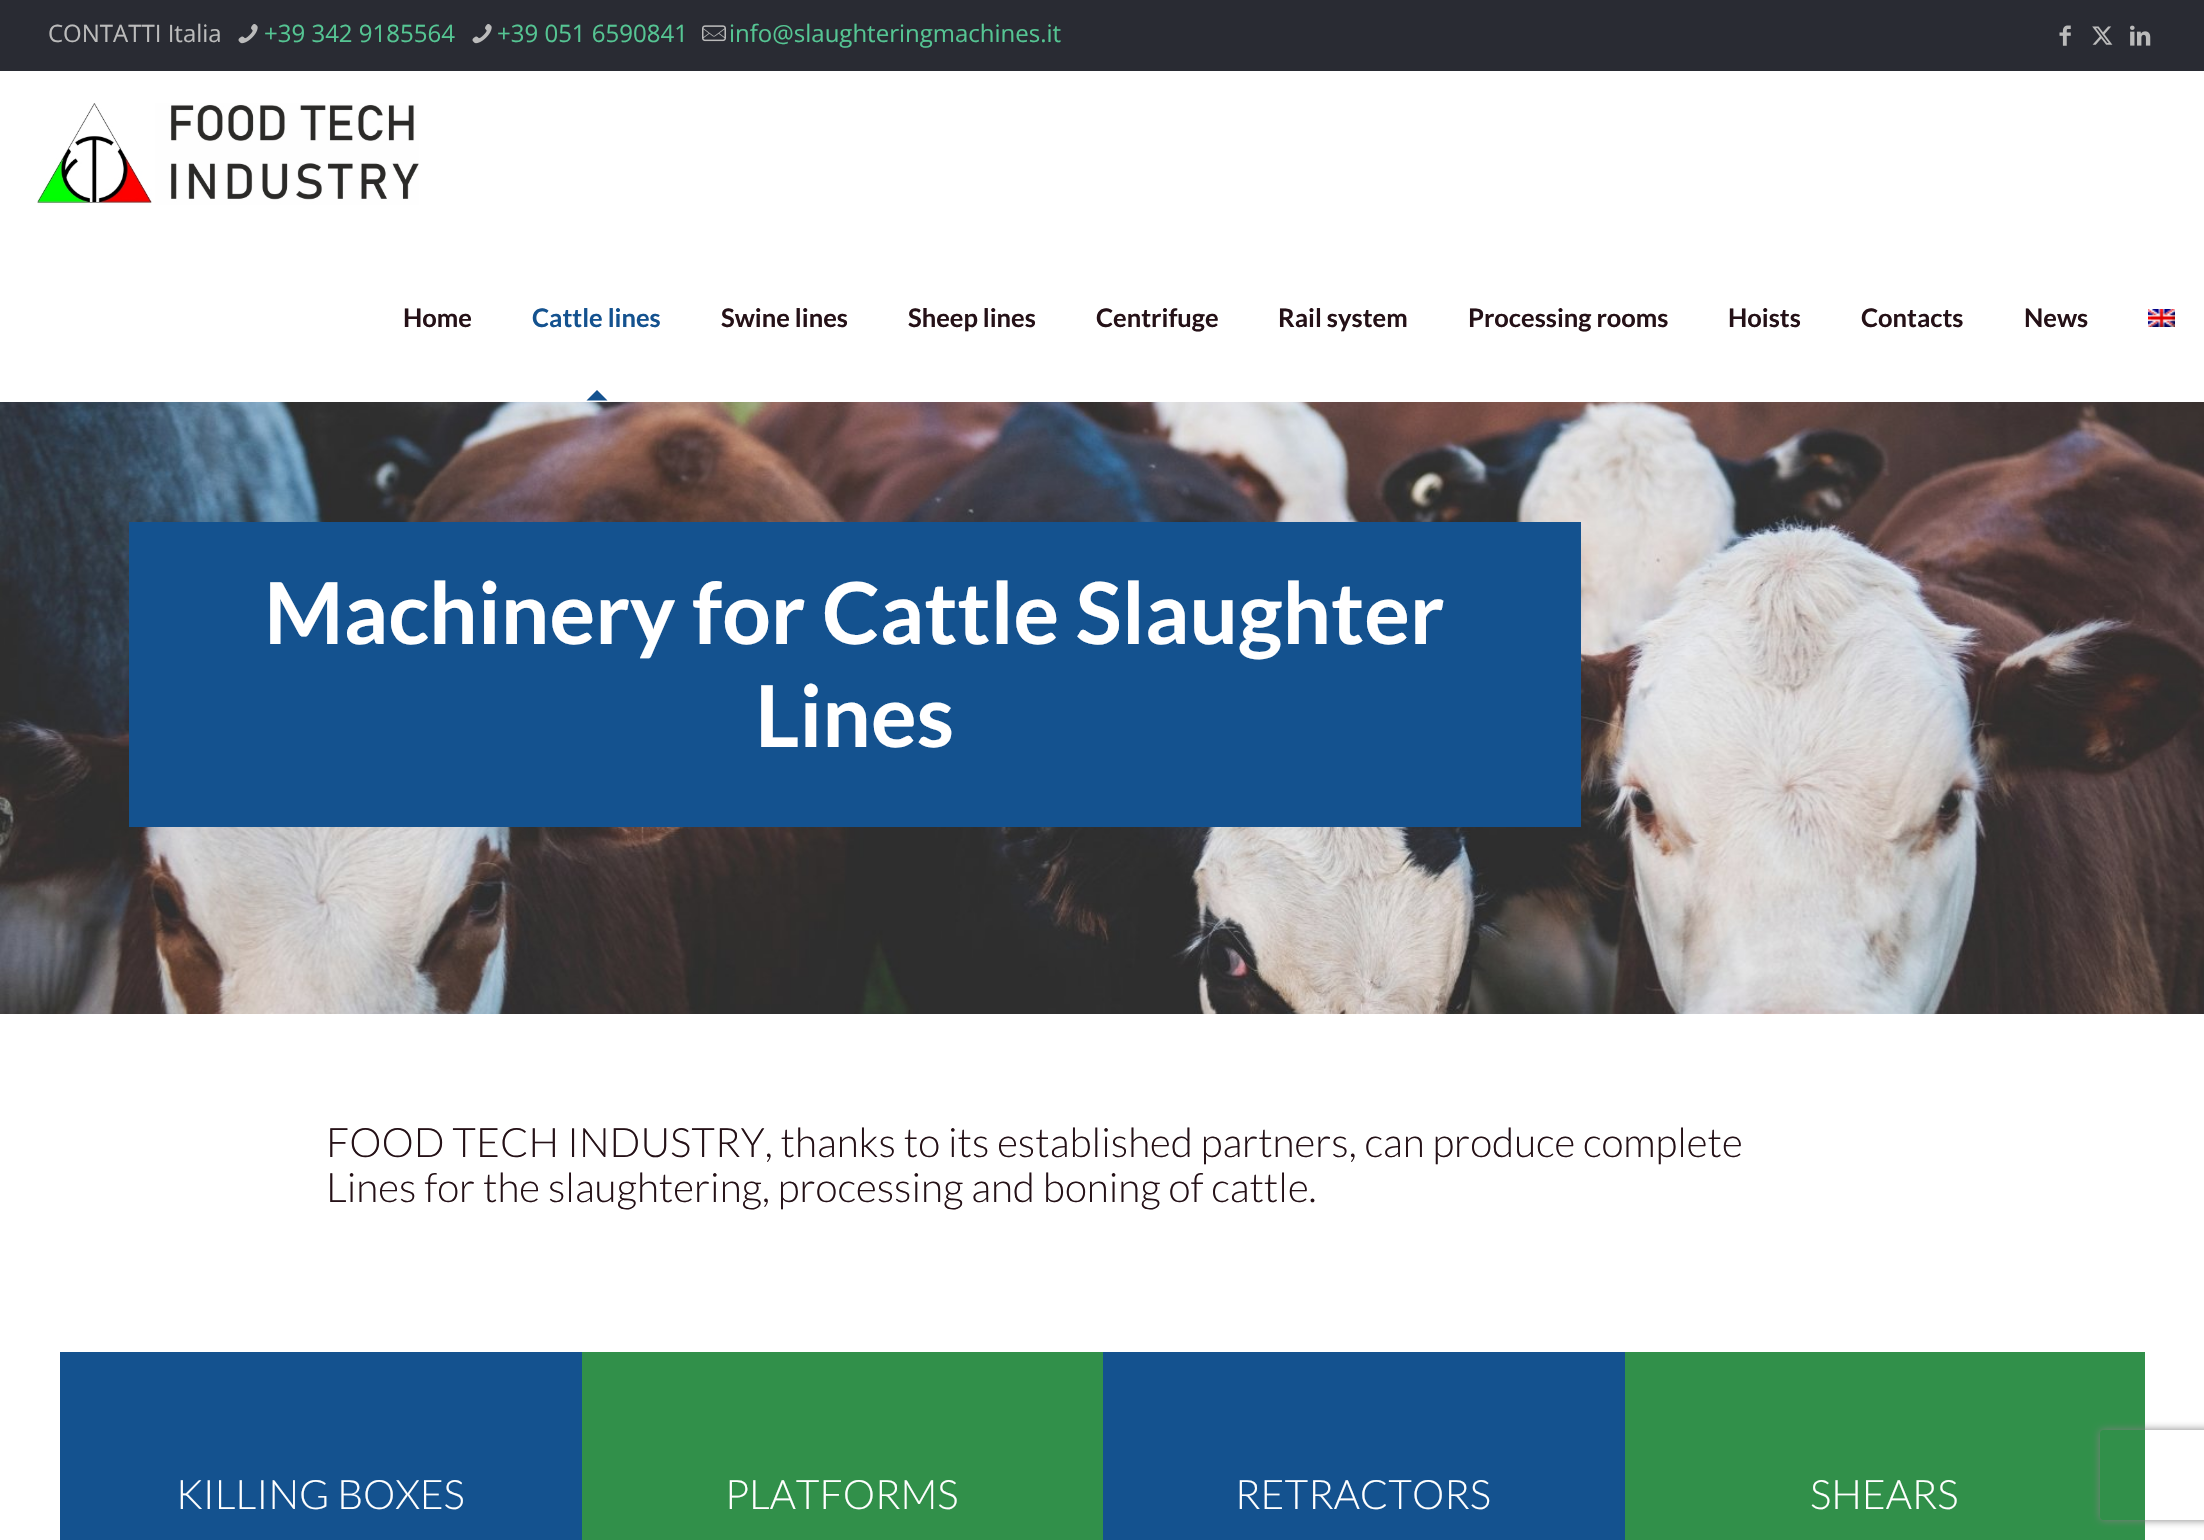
void draw(SkCanvas* canvas) {
  SkPaint paint;
  paint.setAntiAlias(true);
  auto face = [&](const char* family, int weight, float size, bool italic = false) {
    SkFontStyle style(weight, SkFontStyle::kNormal_Width,
      italic ? SkFontStyle::kItalic_Slant : SkFontStyle::kUpright_Slant);
    SkFont result(fontMgr->matchFamilyStyle(family, style), size);
    result.setSubpixel(true);
    return result;
  };
  auto paste = [&](const char* path, float x, float y, float w, float h) {
    auto image = SkImages::DeferredFromEncodedData(SkData::MakeFromFileName(path));
    canvas->drawImageRect(image, SkRect::MakeXYWH(x, y, w, h), SkSamplingOptions());
  };
  auto shape = [&](const char* data, bool evenOdd = false) {
    SkPath result = *SkParsePath::FromSVGString(data);
    if (evenOdd) result.setFillType(SkPathFillType::kEvenOdd);
    return result;
  };
  canvas->clear(0xff292b33);
  paste("img/1.png", 238, 24, 20, 20);
  paste("img/1.png", 472, 24, 20, 20);
  paste("img/2.png", 702, 25, 24, 17);
  paste("img/3.png", 2059, 25, 12, 21);
  paste("img/4.png", 2092, 26, 21, 19);
  paste("img/5.png", 2130, 25, 21, 21);
  paint.setColor(0xffffffff);
  canvas->drawRect(SkRect::MakeXYWH(0, 71, 2204, 331), paint);
  paste("img/6.png", 37, 103, 382, 102);
  paint.setColor(0xff14528f);
  canvas->drawPath(shape("M607.5 400.5H586.5L597 390Z"), paint);
  paste("img/7.png", 2148, 309, 27, 18);
  paint.setColor(0xffffffff);
  canvas->drawRect(SkRect::MakeXYWH(0, 1014, 2204, 526), paint);
  paste("img/8.png", 0, 402, 2204, 612);
  {
    const struct { float x, y, w, h; SkColor color; } items[] = {
      {129, 522, 1452, 305, 0xff14528f},
      {60, 1352, 522, 188, 0xff14528f},
      {582, 1352, 521, 188, 0xff31904a},
      {1103, 1352, 522, 188, 0xff14528f},
      {1625, 1352, 520, 188, 0xff31904a},
    };
    for (auto [x, y, w, h, color] : items) {
      paint.setColor(color);
      canvas->drawRect(SkRect::MakeXYWH(x, y, w, h), paint);
    }
  }
  canvas->save();
  canvas->clipPath(shape("M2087 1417H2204V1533H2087ZM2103 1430H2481C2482.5 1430 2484 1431.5 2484 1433V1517C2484 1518.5 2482.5 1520 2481 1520H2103C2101.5 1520 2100 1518.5 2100 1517V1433C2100 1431.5 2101.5 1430 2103 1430Z", true), true);
  paint.setColor(0xff808080);
  paint.setMaskFilter(SkMaskFilter::MakeBlur(kNormal_SkBlurStyle, 4));
  canvas->drawRoundRect(SkRect::MakeXYWH(2100, 1430, 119, 90), 3, 3, paint);
  paint.setMaskFilter(nullptr);
  canvas->restore();
  auto f0 = face("Open Sans", 400, 24);
  paint.setColor(0xffbbbbbb);
  canvas->drawString("CONTATTI Italia", 48, 42, f0, paint);
  paint.setColor(0xff55c593);
  {
    const struct { const char* s; float x, y; } items[] = {
      {"+39 342 9185564", 264, 42},
      {"+39 051 6590841", 497, 42},
      {"info@slaughteringmachines.it", 729, 42},
    };
    for (auto [s, x, y] : items) {
      canvas->drawString(s, x, y, f0, paint);
    }
  }
  auto f1 = face("Lato", 700, 25.5f);
  paint.setColor(0xff251117);
  canvas->drawString("Home", 403, 327, f1, paint);
  paint.setColor(0xff14528f);
  canvas->drawString("Cattle lines", 532, 327, f1, paint);
  paint.setColor(0xff251117);
  {
    const struct { const char* s; float x, y; } items[] = {
      {"Swine lines", 721, 327},
      {"Sheep lines", 908, 327},
      {"Centrifuge", 1096, 327},
      {"Rail system", 1278, 327},
      {"Processing rooms", 1468, 327},
      {"Hoists", 1728, 327},
      {"Contacts", 1861, 327},
      {"News", 2024, 327},
    };
    for (auto [s, x, y] : items) {
      canvas->drawString(s, x, y, f1, paint);
    }
  }
  auto f2 = face("Lato", 700, 85.5f);
  paint.setColor(0xffffffff);
  canvas->drawString("Machinery for Cattle Slaughter", 264, 644, f2, paint);
  canvas->drawString("Lines", 755, 747, f2, paint);
  auto f3 = face("Lato", 300, 40.5f);
  paint.setColor(0xff251117);
  canvas->drawString("FOOD TECH INDUSTRY, thanks to its established partners, can produce complete", 326, 1157, f3, paint);
  canvas->drawString("Lines for the slaughtering, processing and boning of cattle.", 326, 1202, f3, paint);
  paint.setColor(0xffffffff);
  {
    const struct { const char* s; float x, y; } items[] = {
      {"KILLING BOXES", 176, 1509},
      {"PLATFORMS", 725, 1509},
      {"RETRACTORS", 1235, 1509},
      {"SHEARS", 1810, 1509},
    };
    for (auto [s, x, y] : items) {
      canvas->drawString(s, x, y, f3, paint);
    }
  }
}
